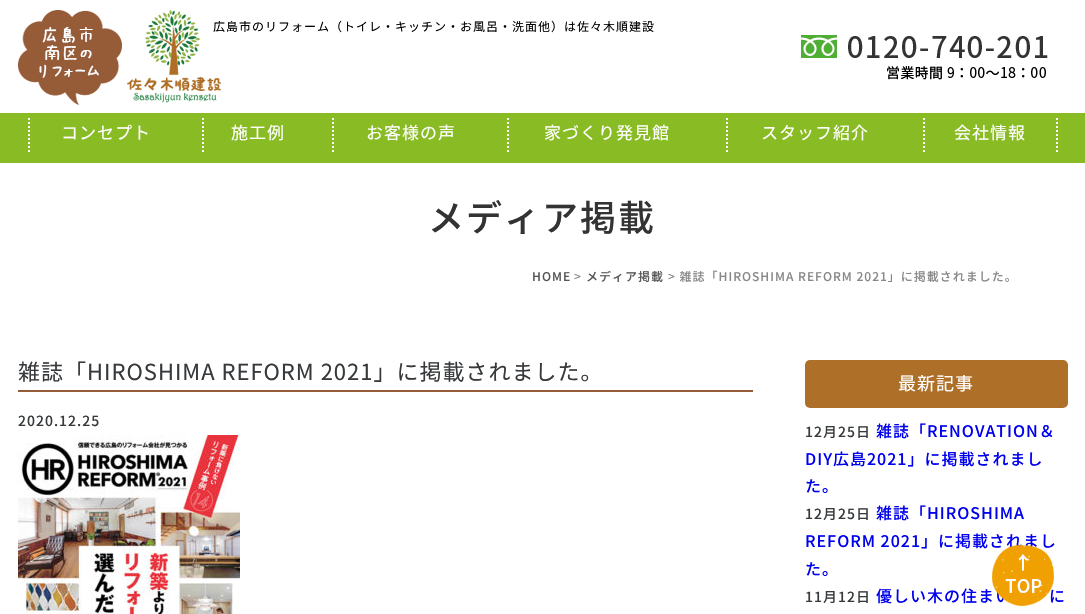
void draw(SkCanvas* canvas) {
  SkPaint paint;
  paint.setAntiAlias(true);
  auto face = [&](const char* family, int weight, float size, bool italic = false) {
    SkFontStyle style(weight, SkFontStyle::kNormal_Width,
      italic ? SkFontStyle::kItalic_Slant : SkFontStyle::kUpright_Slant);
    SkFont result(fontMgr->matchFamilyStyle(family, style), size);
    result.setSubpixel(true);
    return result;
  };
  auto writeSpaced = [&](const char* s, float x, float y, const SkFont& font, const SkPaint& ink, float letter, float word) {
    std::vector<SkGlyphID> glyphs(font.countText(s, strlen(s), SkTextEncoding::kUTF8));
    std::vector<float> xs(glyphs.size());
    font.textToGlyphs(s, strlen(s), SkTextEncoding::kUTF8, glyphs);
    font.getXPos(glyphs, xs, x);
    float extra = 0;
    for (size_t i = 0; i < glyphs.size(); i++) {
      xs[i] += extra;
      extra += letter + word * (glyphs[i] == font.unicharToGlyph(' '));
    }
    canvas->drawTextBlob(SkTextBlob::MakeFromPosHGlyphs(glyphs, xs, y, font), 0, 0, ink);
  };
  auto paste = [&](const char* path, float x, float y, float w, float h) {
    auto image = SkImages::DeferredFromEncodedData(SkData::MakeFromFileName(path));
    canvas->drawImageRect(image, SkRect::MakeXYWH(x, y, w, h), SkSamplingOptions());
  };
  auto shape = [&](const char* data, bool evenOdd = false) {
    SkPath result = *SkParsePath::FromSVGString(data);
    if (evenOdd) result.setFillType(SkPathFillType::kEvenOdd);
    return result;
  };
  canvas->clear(0xffffffff);
  paste("img/1.png", 18, 10, 104, 95);
  paste("img/2.png", 127, 9, 94, 94);
  paste("img/3.png", 801, 35, 247, 45);
  paint.setColor(0xff89bb25);
  canvas->drawRect(SkRect::MakeXYWH(0, 113, 1085, 50), paint);
  paint.setStroke(true);
  paint.setStrokeWidth(2);
  paint.setColor(0xffffffff);
  paint.setPathEffect(SkDashPathEffect::Make({{2, 2}}, 0));
  canvas->drawPath(shape("M29 118V153"), paint);
  paint.setPathEffect(nullptr);
  paint.setPathEffect(SkDashPathEffect::Make({{2, 2}}, 0));
  canvas->drawPath(shape("M203 118V153"), paint);
  paint.setPathEffect(nullptr);
  paint.setPathEffect(SkDashPathEffect::Make({{2, 2}}, 0));
  canvas->drawPath(shape("M333 118V153"), paint);
  paint.setPathEffect(nullptr);
  paint.setPathEffect(SkDashPathEffect::Make({{2, 2}}, 0));
  canvas->drawPath(shape("M508 118V153"), paint);
  paint.setPathEffect(nullptr);
  paint.setPathEffect(SkDashPathEffect::Make({{2, 2}}, 0));
  canvas->drawPath(shape("M727 118V153"), paint);
  paint.setPathEffect(nullptr);
  paint.setPathEffect(SkDashPathEffect::Make({{2, 2}}, 0));
  canvas->drawPath(shape("M1057 118V153"), paint);
  paint.setPathEffect(nullptr);
  paint.setPathEffect(SkDashPathEffect::Make({{2, 2}}, 0));
  canvas->drawPath(shape("M924 118V153"), paint);
  paint.setPathEffect(nullptr);
  paint.setStroke(false);
  paint.setColor(0xff965b37);
  canvas->drawRect(SkRect::MakeXYWH(18, 390, 735, 2), paint);
  paste("img/4.png", 18, 435, 222, 179);
  paint.setColor(0xffae6f28);
  canvas->drawRoundRect(SkRect::MakeXYWH(805, 360, 263, 48), 5, 5, paint);
  auto f0 = face("Noto Sans CJK JP", 400, 12);
  paint.setColor(0xff000000);
  writeSpaced("広島市のリフォーム（トイレ・キッチン・お風呂・洗面他）は佐々木順建設", 213, 31, f0, paint, 1, 0);
  auto f1 = face("Noto Sans CJK JP", 400, 17);
  paint.setColor(0xffffffff);
  {
    const struct { const char* s; float x, y; } items[] = {
      {"コンセプト", 61, 139},
      {"施工例", 231, 139},
      {"お客様の声", 366, 139},
      {"家づくり発見館", 544, 139},
      {"スタッフ紹介", 761, 139},
      {"会社情報", 954, 139},
    };
    for (auto [s, x, y] : items) {
      writeSpaced(s, x, y, f1, paint, 1, 0);
    }
  }
  auto f2 = face("Noto Sans CJK JP", 500, 36);
  paint.setColor(0xff333333);
  writeSpaced("メディア掲載", 428, 231, f2, paint, 2, 0);
  auto f3 = face("Noto Sans CJK JP", 500, 12);
  paint.setColor(0xff555555);
  writeSpaced("HOME", 532, 281, f3, paint, 1, 0);
  paint.setColor(0xff888888);
  writeSpaced(">", 574, 281, f3, paint, 1, 0);
  paint.setColor(0xff555555);
  writeSpaced("メディア掲載", 586, 281, f3, paint, 1, 0);
  paint.setColor(0xff888888);
  writeSpaced("> 雑誌「HIROSHIMA REFORM 2021」に掲載されました。", 668, 281, f3, paint, 1, 0);
  auto f4 = face("Noto Sans CJK JP", 400, 22);
  paint.setColor(0xff373a3c);
  writeSpaced("雑誌「HIROSHIMA REFORM 2021」に掲載されました。", 18, 380, f4, paint, 1, 0);
  auto f5 = face("Noto Sans CJK JP", 500, 14);
  writeSpaced("2020.12.25", 18, 426, f5, paint, 1, 0);
  auto f6 = face("Noto Sans CJK JP", 400, 18);
  paint.setColor(0xffffffff);
  writeSpaced("最新記事", 898, 390, f6, paint, 1, 0);
  paint.setColor(0xff373a3c);
  writeSpaced("12月25日", 805, 437, f5, paint, 1, 0);
  auto f7 = face("Noto Sans CJK JP", 500, 16);
  paint.setColor(0xff0000ee);
  {
    const struct { const char* s; float x, y; } items[] = {
      {"雑誌「RENOVATION＆", 876, 437},
      {"DIY広島2021」に掲載されまし", 805, 465},
      {"た。", 805, 492},
    };
    for (auto [s, x, y] : items) {
      writeSpaced(s, x, y, f7, paint, 1, 0);
    }
  }
  paint.setColor(0xff373a3c);
  writeSpaced("12月25日", 805, 519, f5, paint, 1, 0);
  paint.setColor(0xff0000ee);
  {
    const struct { const char* s; float x, y; } items[] = {
      {"雑誌「HIROSHIMA", 876, 519},
      {"REFORM 2021」に掲載されまし", 805, 547},
      {"た。", 805, 575},
    };
    for (auto [s, x, y] : items) {
      writeSpaced(s, x, y, f7, paint, 1, 0);
    }
  }
  paint.setColor(0xff373a3c);
  writeSpaced("11月12日", 805, 602, f5, paint, 1, 0);
  paint.setColor(0xff0000ee);
  writeSpaced("優しい木の住まい", 876, 602, f7, paint, 1, 0);
  writeSpaced("に", 1049, 602, f7, paint, 1, 0);
  paste("img/5.png", 992, 545, 62, 61);
}
